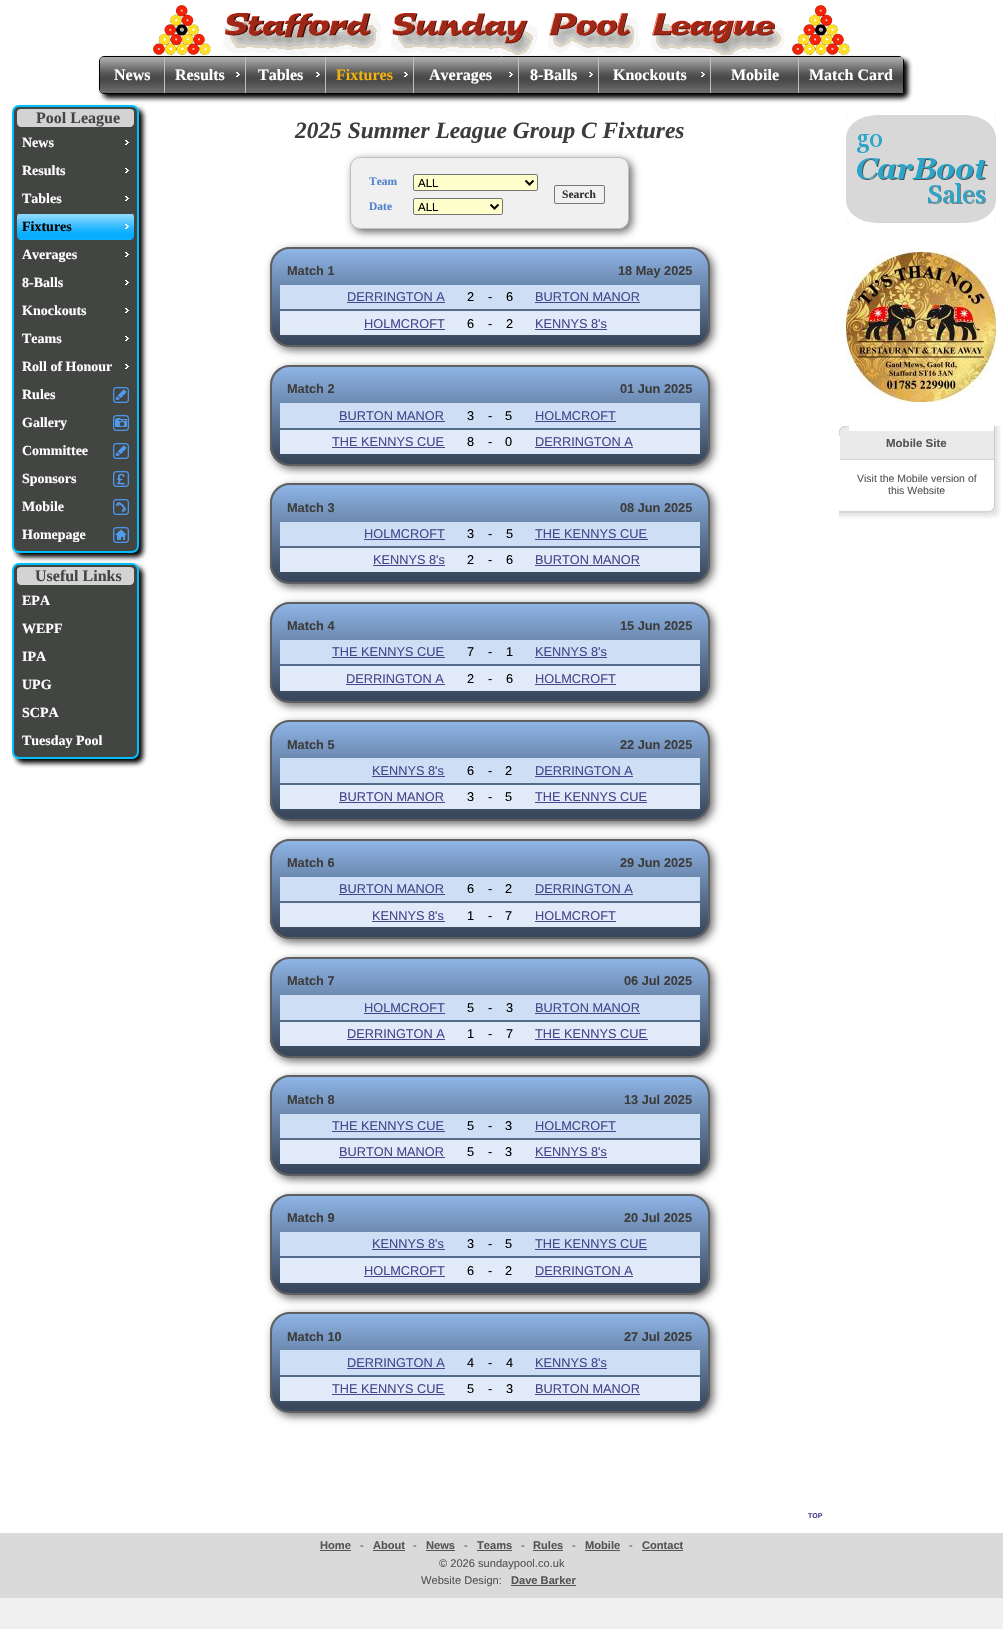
void draw(SkCanvas* canvas) {
  SkPaint paint;
  paint.setAntiAlias(true);
  auto face = [&](const char* family, int weight, float size, bool italic = false) {
    SkFontStyle style(weight, SkFontStyle::kNormal_Width,
      italic ? SkFontStyle::kItalic_Slant : SkFontStyle::kUpright_Slant);
    SkFont result(fontMgr->matchFamilyStyle(family, style), size);
    result.setSubpixel(true);
    return result;
  };
  auto paste = [&](const char* path, float x, float y, float w, float h) {
    auto image = SkImages::DeferredFromEncodedData(SkData::MakeFromFileName(path));
    canvas->drawImageRect(image, SkRect::MakeXYWH(x, y, w, h), SkSamplingOptions());
  };
  auto shape = [&](const char* data, bool evenOdd = false) {
    SkPath result = *SkParsePath::FromSVGString(data);
    if (evenOdd) result.setFillType(SkPathFillType::kEvenOdd);
    return result;
  };
  canvas->clear(0xfff0f0f0);
  paint.setColor(0xffffffff);
  canvas->drawRect(SkRect::MakeXYWH(0, 0, 1003, 1533), paint);
  paste("img/1.png", 153, 5, 697, 50);
  paint.setColor(0xff000000);
  paint.setMaskFilter(SkMaskFilter::MakeBlur(kNormal_SkBlurStyle, 2.5f));
  canvas->drawRoundRect(SkRect::MakeXYWH(103, 60, 805, 38), 5, 5, paint);
  paint.setMaskFilter(nullptr);
  paint.setStroke(true);
  paint.setStrokeWidth(1);
  canvas->drawRoundRect(SkRect::MakeXYWH(99.5f, 56.5f, 804, 37), 4.5f, 4.5f, paint);
  paint.setStroke(false);
  paint.setColor(0xff444444);
  canvas->drawPath(shape("M104 57H164V93H104C102 93 100 91 100 89V61C100 59 102 57 104 57Z"), paint);
  paste("img/2.png", 100, 57, 64, 36);
  canvas->drawRect(SkRect::MakeXYWH(165, 57, 80, 36), paint);
  paste("img/3.png", 165, 57, 80, 36);
  paint.setColor(0xffc0c0c0);
  canvas->drawRect(SkRect::MakeXYWH(164, 57, 1, 36), paint);
  paste("img/4.png", 236, 72, 4, 5);
  paint.setColor(0xff444444);
  canvas->drawRect(SkRect::MakeXYWH(246, 57, 79, 36), paint);
  paste("img/5.png", 246, 57, 79, 36);
  paint.setColor(0xffc0c0c0);
  canvas->drawRect(SkRect::MakeXYWH(245, 57, 1, 36), paint);
  paste("img/6.png", 316, 72, 4, 5);
  paint.setColor(0xff444444);
  canvas->drawRect(SkRect::MakeXYWH(326, 57, 87, 36), paint);
  paste("img/7.png", 326, 57, 87, 36);
  paint.setColor(0xffc0c0c0);
  canvas->drawRect(SkRect::MakeXYWH(325, 57, 1, 36), paint);
  paste("img/6.png", 404, 72, 4, 5);
  paint.setColor(0xff444444);
  canvas->drawRect(SkRect::MakeXYWH(414, 57, 104, 36), paint);
  paste("img/8.png", 414, 57, 104, 36);
  paint.setColor(0xffc0c0c0);
  canvas->drawRect(SkRect::MakeXYWH(413, 57, 1, 36), paint);
  paste("img/4.png", 509, 72, 4, 5);
  paint.setColor(0xff444444);
  canvas->drawRect(SkRect::MakeXYWH(519, 57, 79, 36), paint);
  paste("img/5.png", 519, 57, 79, 36);
  paint.setColor(0xffc0c0c0);
  canvas->drawRect(SkRect::MakeXYWH(518, 57, 1, 36), paint);
  paste("img/6.png", 589, 72, 4, 5);
  paint.setColor(0xff444444);
  canvas->drawRect(SkRect::MakeXYWH(599, 57, 111, 36), paint);
  paste("img/9.png", 599, 57, 111, 36);
  paint.setColor(0xffc0c0c0);
  canvas->drawRect(SkRect::MakeXYWH(598, 57, 1, 36), paint);
  paste("img/6.png", 701, 72, 4, 5);
  paint.setColor(0xff444444);
  canvas->drawRect(SkRect::MakeXYWH(711, 57, 87, 36), paint);
  paste("img/7.png", 711, 57, 87, 36);
  paint.setColor(0xffc0c0c0);
  canvas->drawRect(SkRect::MakeXYWH(710, 57, 1, 36), paint);
  paint.setColor(0xff444444);
  canvas->drawRect(SkRect::MakeXYWH(799, 57, 104, 36), paint);
  paste("img/8.png", 799, 57, 104, 36);
  paint.setColor(0xffc0c0c0);
  canvas->drawRect(SkRect::MakeXYWH(798, 57, 1, 36), paint);
  paint.setColor(0xff000000);
  paint.setMaskFilter(SkMaskFilter::MakeBlur(kNormal_SkBlurStyle, 2.5f));
  canvas->drawRoundRect(SkRect::MakeXYWH(16, 109, 127, 448), 7, 7, paint);
  paint.setMaskFilter(nullptr);
  paint.setColor(0xff424542);
  canvas->drawRoundRect(SkRect::MakeXYWH(13, 106, 125, 446), 6, 6, paint);
  paint.setStroke(true);
  paint.setStrokeWidth(2);
  paint.setColor(0xff00bfff);
  canvas->drawRoundRect(SkRect::MakeXYWH(13, 106, 125, 446), 6, 6, paint);
  paint.setStroke(false);
  paint.setColor(0xffd3d3d3);
  canvas->drawPath(shape("M21 109H130C132 109 134 110 134 112V123C134 125 132 127 130 127H21C19 127 17 125 17 123V112C17 110 19 109 21 109Z"), paint);
  paste("img/10.png", 125, 140, 4, 5);
  paste("img/10.png", 125, 168, 4, 5);
  paste("img/10.png", 125, 196, 4, 5);
  paint.setColor(0xff00aaff);
  canvas->drawPath(shape("M21 214H130C132 214 134 215 134 217V236C134 238 132 240 130 240H21C19 240 17 238 17 236V217C17 215 19 214 21 214Z"), paint);
  paste("img/11.png", 17, 213, 117, 27);
  paint.setColor(0xff424542);
  canvas->drawRect(SkRect::MakeXYWH(19, 213, 113, 1), paint);
  paste("img/12.png", 125, 224, 4, 5);
  paste("img/10.png", 125, 252, 4, 5);
  paste("img/10.png", 125, 280, 4, 5);
  paste("img/10.png", 125, 308, 4, 5);
  paste("img/10.png", 125, 336, 4, 5);
  paste("img/10.png", 125, 364, 4, 5);
  paste("img/13.png", 113, 387, 16, 16);
  paste("img/14.png", 113, 415, 16, 16);
  paste("img/13.png", 113, 443, 16, 16);
  paste("img/15.png", 113, 471, 16, 16);
  paste("img/16.png", 113, 499, 16, 16);
  paste("img/17.png", 113, 527, 16, 16);
  paint.setColor(0xff000000);
  paint.setMaskFilter(SkMaskFilter::MakeBlur(kNormal_SkBlurStyle, 2.5f));
  canvas->drawRoundRect(SkRect::MakeXYWH(16, 567, 127, 196), 7, 7, paint);
  paint.setMaskFilter(nullptr);
  paint.setColor(0xff424542);
  canvas->drawRoundRect(SkRect::MakeXYWH(13, 564, 125, 194), 6, 6, paint);
  paint.setStroke(true);
  paint.setColor(0xff00bfff);
  canvas->drawRoundRect(SkRect::MakeXYWH(13, 564, 125, 194), 6, 6, paint);
  paint.setStroke(false);
  paint.setColor(0xffd3d3d3);
  canvas->drawPath(shape("M21 567H130C132 567 134 568 134 570V581C134 583 132 585 130 585H21C19 585 17 583 17 581V570C17 568 19 567 21 567Z"), paint);
  paste("img/18.png", 846, 112, 150, 115);
  paste("img/19.png", 846, 252, 150, 150);
  paste("img/20.png", 839, 426, 162, 93);
  paste("img/21.png", 839, 426, 10, 10);
  paint.setColor(0xffeaeaea);
  canvas->drawRect(SkRect::MakeXYWH(840, 431, 154, 28), paint);
  paint.setColor(0xffd6d6d6);
  canvas->drawRect(SkRect::MakeXYWH(840, 459, 154, 1), paint);
  paint.setColor(0x99000000);
  paint.setMaskFilter(SkMaskFilter::MakeBlur(kNormal_SkBlurStyle, 4));
  canvas->drawRoundRect(SkRect::MakeXYWH(353, 160, 279, 72), 10, 10, paint);
  paint.setMaskFilter(nullptr);
  paint.setColor(0xfff0f0f0);
  canvas->drawRoundRect(SkRect::MakeXYWH(350.5f, 157.5f, 278, 71), 9.5f, 9.5f, paint);
  paint.setStroke(true);
  paint.setStrokeWidth(1);
  paint.setColor(0xffc0c0c0);
  canvas->drawRoundRect(SkRect::MakeXYWH(350.5f, 157.5f, 278, 71), 9.5f, 9.5f, paint);
  paint.setStroke(false);
  paint.setColor(0xffffffcc);
  canvas->drawRoundRect(SkRect::MakeXYWH(413.5f, 174.5f, 124, 16), 1.5f, 1.5f, paint);
  paint.setStroke(true);
  paint.setColor(0xff767676);
  canvas->drawRoundRect(SkRect::MakeXYWH(413.5f, 174.5f, 124, 16), 1.5f, 1.5f, paint);
  paint.setStrokeWidth(2);
  paint.setColor(0xff000000);
  canvas->drawPath(shape("M525.5 180.5L529.5 184.5L533.5 180.5"), paint);
  paint.setStrokeWidth(1);
  paint.setColor(0xff767676);
  canvas->drawRoundRect(SkRect::MakeXYWH(554.5f, 185.5f, 50, 18), 1.5f, 1.5f, paint);
  paint.setStroke(false);
  paint.setColor(0xffffffcc);
  canvas->drawRoundRect(SkRect::MakeXYWH(413.5f, 198.5f, 89, 16), 1.5f, 1.5f, paint);
  paint.setStroke(true);
  paint.setColor(0xff767676);
  canvas->drawRoundRect(SkRect::MakeXYWH(413.5f, 198.5f, 89, 16), 1.5f, 1.5f, paint);
  paint.setStrokeWidth(2);
  paint.setColor(0xff000000);
  canvas->drawPath(shape("M490.5 204.5L494.5 208.5L498.5 204.5"), paint);
  paint.setStroke(false);
  paint.setColor(0x99000000);
  paint.setMaskFilter(SkMaskFilter::MakeBlur(kNormal_SkBlurStyle, 4));
  canvas->drawRoundRect(SkRect::MakeXYWH(273, 250, 440, 100), 20, 20, paint);
  paint.setMaskFilter(nullptr);
  paint.setColor(0xff8eb4e6);
  canvas->drawRoundRect(SkRect::MakeXYWH(270, 247, 440, 100), 20, 20, paint);
  canvas->save();
  canvas->clipPath(shape("M290 247H690C701 247 710 256 710 267V327C710 338 701 347 690 347H290C279 347 270 338 270 327V267C270 256 279 247 290 247Z"), true);
  {
    const SkColor colors[] = {0x00000000, 0x99000000};
    const float stops[] = {0, 1};
    const SkPoint ends[] = {{272, 249}, {272, 340}};
    paint.setShader(SkGradientShader::MakeLinear(ends, colors, stops, 2, SkTileMode::kClamp));
    paint.setAlpha(255);
  }
  canvas->drawRect(SkRect::MakeXYWH(270, 252, 440, 93), paint);
  canvas->restore();
  paint.setStroke(true);
  paint.setShader(nullptr);
  paint.setColor(0xff606060);
  canvas->drawRoundRect(SkRect::MakeXYWH(271, 248, 438, 98), 19, 19, paint);
  paint.setStroke(false);
  {
    const struct { float x, y, w, h; SkColor color; } items[] = {
      {280, 285, 420, 24, 0xffcedef4},
      {347, 302, 98, 1, 0xff46468c},
      {535, 302, 105, 1, 0xff46468c},
      {280, 311, 420, 24, 0xffe0eaf8},
      {364, 329, 81, 1, 0xff46468c},
      {535, 329, 72, 1, 0xff46468c},
    };
    for (auto [x, y, w, h, color] : items) {
      paint.setColor(color);
      canvas->drawRect(SkRect::MakeXYWH(x, y, w, h), paint);
    }
  }
  paint.setColor(0x99000000);
  paint.setMaskFilter(SkMaskFilter::MakeBlur(kNormal_SkBlurStyle, 4));
  canvas->drawRoundRect(SkRect::MakeXYWH(273, 368, 440, 101), 20, 20, paint);
  paint.setMaskFilter(nullptr);
  paint.setColor(0xff8eb4e6);
  canvas->drawRoundRect(SkRect::MakeXYWH(270, 365, 440, 101), 20, 20, paint);
  canvas->save();
  canvas->clipPath(shape("M290 365H690C701 365 710 374 710 385V446C710 457 701 466 690 466H290C279 466 270 457 270 446V385C270 374 279 365 290 365Z"), true);
  {
    const SkColor colors[] = {0x00000000, 0x99000000};
    const float stops[] = {0, 1};
    const SkPoint ends[] = {{272, 367}, {272, 459}};
    paint.setShader(SkGradientShader::MakeLinear(ends, colors, stops, 2, SkTileMode::kClamp));
    paint.setAlpha(255);
  }
  canvas->drawRect(SkRect::MakeXYWH(270, 370, 440, 94), paint);
  canvas->restore();
  paint.setStroke(true);
  paint.setShader(nullptr);
  paint.setColor(0xff606060);
  canvas->drawRoundRect(SkRect::MakeXYWH(271, 366, 438, 99), 19, 19, paint);
  paint.setStroke(false);
  {
    const struct { float x, y, w, h; SkColor color; } items[] = {
      {280, 403, 420, 25, 0xffcedef4},
      {339, 421, 106, 1, 0xff46468c},
      {535, 421, 81, 1, 0xff46468c},
      {280, 430, 420, 24, 0xffe0eaf8},
      {332, 447, 113, 1, 0xff46468c},
      {535, 447, 98, 1, 0xff46468c},
    };
    for (auto [x, y, w, h, color] : items) {
      paint.setColor(color);
      canvas->drawRect(SkRect::MakeXYWH(x, y, w, h), paint);
    }
  }
  paint.setColor(0x99000000);
  paint.setMaskFilter(SkMaskFilter::MakeBlur(kNormal_SkBlurStyle, 4));
  canvas->drawRoundRect(SkRect::MakeXYWH(273, 486, 440, 101), 20, 20, paint);
  paint.setMaskFilter(nullptr);
  paint.setColor(0xff8eb4e6);
  canvas->drawRoundRect(SkRect::MakeXYWH(270, 483, 440, 101), 20, 20, paint);
  canvas->save();
  canvas->clipPath(shape("M290 483H690C701 483 710 492 710 503V564C710 575 701 584 690 584H290C279 584 270 575 270 564V503C270 492 279 483 290 483Z"), true);
  {
    const SkColor colors[] = {0x00000000, 0x99000000};
    const float stops[] = {0, 1};
    const SkPoint ends[] = {{272, 485}, {272, 577}};
    paint.setShader(SkGradientShader::MakeLinear(ends, colors, stops, 2, SkTileMode::kClamp));
    paint.setAlpha(255);
  }
  canvas->drawRect(SkRect::MakeXYWH(270, 488, 440, 94), paint);
  canvas->restore();
  paint.setStroke(true);
  paint.setShader(nullptr);
  paint.setColor(0xff606060);
  canvas->drawRoundRect(SkRect::MakeXYWH(271, 484, 438, 99), 19, 19, paint);
  paint.setStroke(false);
  {
    const struct { float x, y, w, h; SkColor color; } items[] = {
      {280, 522, 420, 24, 0xffcedef4},
      {364, 539, 81, 1, 0xff46468c},
      {535, 539, 113, 1, 0xff46468c},
      {280, 548, 420, 24, 0xffe0eaf8},
      {373, 565, 72, 1, 0xff46468c},
      {535, 565, 105, 1, 0xff46468c},
    };
    for (auto [x, y, w, h, color] : items) {
      paint.setColor(color);
      canvas->drawRect(SkRect::MakeXYWH(x, y, w, h), paint);
    }
  }
  paint.setColor(0x99000000);
  paint.setMaskFilter(SkMaskFilter::MakeBlur(kNormal_SkBlurStyle, 4));
  canvas->drawRoundRect(SkRect::MakeXYWH(273, 605, 440, 101), 20, 20, paint);
  paint.setMaskFilter(nullptr);
  paint.setColor(0xff8eb4e6);
  canvas->drawRoundRect(SkRect::MakeXYWH(270, 602, 440, 101), 20, 20, paint);
  canvas->save();
  canvas->clipPath(shape("M290 602H690C701 602 710 611 710 622V683C710 694 701 703 690 703H290C279 703 270 694 270 683V622C270 611 279 602 290 602Z"), true);
  {
    const SkColor colors[] = {0x00000000, 0x99000000};
    const float stops[] = {0, 1};
    const SkPoint ends[] = {{272, 604}, {272, 696}};
    paint.setShader(SkGradientShader::MakeLinear(ends, colors, stops, 2, SkTileMode::kClamp));
    paint.setAlpha(255);
  }
  canvas->drawRect(SkRect::MakeXYWH(270, 607, 440, 94), paint);
  canvas->restore();
  paint.setStroke(true);
  paint.setShader(nullptr);
  paint.setColor(0xff606060);
  canvas->drawRoundRect(SkRect::MakeXYWH(271, 603, 438, 99), 19, 19, paint);
  paint.setStroke(false);
  {
    const struct { float x, y, w, h; SkColor color; } items[] = {
      {280, 640, 420, 24, 0xffcedef4},
      {332, 657, 113, 1, 0xff46468c},
      {535, 657, 72, 1, 0xff46468c},
      {280, 666, 420, 25, 0xffe0eaf8},
      {346, 684, 99, 1, 0xff46468c},
      {535, 684, 81, 1, 0xff46468c},
    };
    for (auto [x, y, w, h, color] : items) {
      paint.setColor(color);
      canvas->drawRect(SkRect::MakeXYWH(x, y, w, h), paint);
    }
  }
  paint.setColor(0x99000000);
  paint.setMaskFilter(SkMaskFilter::MakeBlur(kNormal_SkBlurStyle, 4));
  canvas->drawRoundRect(SkRect::MakeXYWH(273, 723, 440, 101), 20, 20, paint);
  paint.setMaskFilter(nullptr);
  paint.setColor(0xff8eb4e6);
  canvas->drawRoundRect(SkRect::MakeXYWH(270, 720, 440, 101), 20, 20, paint);
  canvas->save();
  canvas->clipPath(shape("M290 720H690C701 720 710 729 710 740V801C710 812 701 821 690 821H290C279 821 270 812 270 801V740C270 729 279 720 290 720Z"), true);
  {
    const SkColor colors[] = {0x00000000, 0x99000000};
    const float stops[] = {0, 1};
    const SkPoint ends[] = {{272, 722}, {272, 814}};
    paint.setShader(SkGradientShader::MakeLinear(ends, colors, stops, 2, SkTileMode::kClamp));
    paint.setAlpha(255);
  }
  canvas->drawRect(SkRect::MakeXYWH(270, 725, 440, 94), paint);
  canvas->restore();
  paint.setStroke(true);
  paint.setShader(nullptr);
  paint.setColor(0xff606060);
  canvas->drawRoundRect(SkRect::MakeXYWH(271, 721, 438, 99), 19, 19, paint);
  paint.setStroke(false);
  {
    const struct { float x, y, w, h; SkColor color; } items[] = {
      {280, 758, 420, 25, 0xffcedef4},
      {372, 776, 73, 1, 0xff46468c},
      {535, 776, 98, 1, 0xff46468c},
      {280, 785, 420, 24, 0xffe0eaf8},
      {339, 802, 106, 1, 0xff46468c},
      {535, 802, 112, 1, 0xff46468c},
    };
    for (auto [x, y, w, h, color] : items) {
      paint.setColor(color);
      canvas->drawRect(SkRect::MakeXYWH(x, y, w, h), paint);
    }
  }
  paint.setColor(0x99000000);
  paint.setMaskFilter(SkMaskFilter::MakeBlur(kNormal_SkBlurStyle, 4));
  canvas->drawRoundRect(SkRect::MakeXYWH(273, 842, 440, 100), 20, 20, paint);
  paint.setMaskFilter(nullptr);
  paint.setColor(0xff8eb4e6);
  canvas->drawRoundRect(SkRect::MakeXYWH(270, 839, 440, 100), 20, 20, paint);
  canvas->save();
  canvas->clipPath(shape("M290 839H690C701 839 710 848 710 859V919C710 930 701 939 690 939H290C279 939 270 930 270 919V859C270 848 279 839 290 839Z"), true);
  {
    const SkColor colors[] = {0x00000000, 0x99000000};
    const float stops[] = {0, 1};
    const SkPoint ends[] = {{272, 841}, {272, 932}};
    paint.setShader(SkGradientShader::MakeLinear(ends, colors, stops, 2, SkTileMode::kClamp));
    paint.setAlpha(255);
  }
  canvas->drawRect(SkRect::MakeXYWH(270, 844, 440, 93), paint);
  canvas->restore();
  paint.setStroke(true);
  paint.setShader(nullptr);
  paint.setColor(0xff606060);
  canvas->drawRoundRect(SkRect::MakeXYWH(271, 840, 438, 98), 19, 19, paint);
  paint.setStroke(false);
  {
    const struct { float x, y, w, h; SkColor color; } items[] = {
      {280, 877, 420, 24, 0xffcedef4},
      {339, 894, 106, 1, 0xff46468c},
      {535, 894, 98, 1, 0xff46468c},
      {280, 903, 420, 24, 0xffe0eaf8},
      {372, 921, 73, 1, 0xff46468c},
      {535, 921, 81, 1, 0xff46468c},
    };
    for (auto [x, y, w, h, color] : items) {
      paint.setColor(color);
      canvas->drawRect(SkRect::MakeXYWH(x, y, w, h), paint);
    }
  }
  paint.setColor(0x99000000);
  paint.setMaskFilter(SkMaskFilter::MakeBlur(kNormal_SkBlurStyle, 4));
  canvas->drawRoundRect(SkRect::MakeXYWH(273, 960, 440, 101), 20, 20, paint);
  paint.setMaskFilter(nullptr);
  paint.setColor(0xff8eb4e6);
  canvas->drawRoundRect(SkRect::MakeXYWH(270, 957, 440, 101), 20, 20, paint);
  canvas->save();
  canvas->clipPath(shape("M290 957H690C701 957 710 966 710 977V1038C710 1049 701 1058 690 1058H290C279 1058 270 1049 270 1038V977C270 966 279 957 290 957Z"), true);
  {
    const SkColor colors[] = {0x00000000, 0x99000000};
    const float stops[] = {0, 1};
    const SkPoint ends[] = {{272, 959}, {272, 1051}};
    paint.setShader(SkGradientShader::MakeLinear(ends, colors, stops, 2, SkTileMode::kClamp));
    paint.setAlpha(255);
  }
  canvas->drawRect(SkRect::MakeXYWH(270, 962, 440, 94), paint);
  canvas->restore();
  paint.setStroke(true);
  paint.setShader(nullptr);
  paint.setColor(0xff606060);
  canvas->drawRoundRect(SkRect::MakeXYWH(271, 958, 438, 99), 19, 19, paint);
  paint.setStroke(false);
  {
    const struct { float x, y, w, h; SkColor color; } items[] = {
      {280, 995, 420, 25, 0xffcedef4},
      {364, 1013, 81, 1, 0xff46468c},
      {535, 1013, 105, 1, 0xff46468c},
      {280, 1022, 420, 24, 0xffe0eaf8},
      {347, 1039, 98, 1, 0xff46468c},
      {535, 1039, 113, 1, 0xff46468c},
    };
    for (auto [x, y, w, h, color] : items) {
      paint.setColor(color);
      canvas->drawRect(SkRect::MakeXYWH(x, y, w, h), paint);
    }
  }
  paint.setColor(0x99000000);
  paint.setMaskFilter(SkMaskFilter::MakeBlur(kNormal_SkBlurStyle, 4));
  canvas->drawRoundRect(SkRect::MakeXYWH(273, 1078, 440, 101), 20, 20, paint);
  paint.setMaskFilter(nullptr);
  paint.setColor(0xff8eb4e6);
  canvas->drawRoundRect(SkRect::MakeXYWH(270, 1075, 440, 101), 20, 20, paint);
  canvas->save();
  canvas->clipPath(shape("M290 1075H690C701 1075 710 1084 710 1095V1156C710 1167 701 1176 690 1176H290C279 1176 270 1167 270 1156V1095C270 1084 279 1075 290 1075Z"), true);
  {
    const SkColor colors[] = {0x00000000, 0x99000000};
    const float stops[] = {0, 1};
    const SkPoint ends[] = {{272, 1077}, {272, 1169}};
    paint.setShader(SkGradientShader::MakeLinear(ends, colors, stops, 2, SkTileMode::kClamp));
    paint.setAlpha(255);
  }
  canvas->drawRect(SkRect::MakeXYWH(270, 1080, 440, 94), paint);
  canvas->restore();
  paint.setStroke(true);
  paint.setShader(nullptr);
  paint.setColor(0xff606060);
  canvas->drawRoundRect(SkRect::MakeXYWH(271, 1076, 438, 99), 19, 19, paint);
  paint.setStroke(false);
  {
    const struct { float x, y, w, h; SkColor color; } items[] = {
      {280, 1114, 420, 24, 0xffcedef4},
      {332, 1131, 113, 1, 0xff46468c},
      {535, 1131, 81, 1, 0xff46468c},
      {280, 1140, 420, 24, 0xffe0eaf8},
      {339, 1157, 106, 1, 0xff46468c},
      {535, 1157, 72, 1, 0xff46468c},
    };
    for (auto [x, y, w, h, color] : items) {
      paint.setColor(color);
      canvas->drawRect(SkRect::MakeXYWH(x, y, w, h), paint);
    }
  }
  paint.setColor(0x99000000);
  paint.setMaskFilter(SkMaskFilter::MakeBlur(kNormal_SkBlurStyle, 4));
  canvas->drawRoundRect(SkRect::MakeXYWH(273, 1197, 440, 101), 20, 20, paint);
  paint.setMaskFilter(nullptr);
  paint.setColor(0xff8eb4e6);
  canvas->drawRoundRect(SkRect::MakeXYWH(270, 1194, 440, 101), 20, 20, paint);
  canvas->save();
  canvas->clipPath(shape("M290 1194H690C701 1194 710 1203 710 1214V1275C710 1286 701 1295 690 1295H290C279 1295 270 1286 270 1275V1214C270 1203 279 1194 290 1194Z"), true);
  {
    const SkColor colors[] = {0x00000000, 0x99000000};
    const float stops[] = {0, 1};
    const SkPoint ends[] = {{272, 1196}, {272, 1288}};
    paint.setShader(SkGradientShader::MakeLinear(ends, colors, stops, 2, SkTileMode::kClamp));
    paint.setAlpha(255);
  }
  canvas->drawRect(SkRect::MakeXYWH(270, 1199, 440, 94), paint);
  canvas->restore();
  paint.setStroke(true);
  paint.setShader(nullptr);
  paint.setColor(0xff606060);
  canvas->drawRoundRect(SkRect::MakeXYWH(271, 1195, 438, 99), 19, 19, paint);
  paint.setStroke(false);
  {
    const struct { float x, y, w, h; SkColor color; } items[] = {
      {280, 1232, 420, 24, 0xffcedef4},
      {372, 1249, 73, 1, 0xff46468c},
      {535, 1249, 112, 1, 0xff46468c},
      {280, 1258, 420, 25, 0xffe0eaf8},
      {364, 1276, 81, 1, 0xff46468c},
      {535, 1276, 98, 1, 0xff46468c},
    };
    for (auto [x, y, w, h, color] : items) {
      paint.setColor(color);
      canvas->drawRect(SkRect::MakeXYWH(x, y, w, h), paint);
    }
  }
  paint.setColor(0x99000000);
  paint.setMaskFilter(SkMaskFilter::MakeBlur(kNormal_SkBlurStyle, 4));
  canvas->drawRoundRect(SkRect::MakeXYWH(273, 1315, 440, 101), 20, 20, paint);
  paint.setMaskFilter(nullptr);
  paint.setColor(0xff8eb4e6);
  canvas->drawRoundRect(SkRect::MakeXYWH(270, 1312, 440, 101), 20, 20, paint);
  canvas->save();
  canvas->clipPath(shape("M290 1312H690C701 1312 710 1321 710 1332V1393C710 1404 701 1413 690 1413H290C279 1413 270 1404 270 1393V1332C270 1321 279 1312 290 1312Z"), true);
  {
    const SkColor colors[] = {0x00000000, 0x99000000};
    const float stops[] = {0, 1};
    const SkPoint ends[] = {{272, 1314}, {272, 1406}};
    paint.setShader(SkGradientShader::MakeLinear(ends, colors, stops, 2, SkTileMode::kClamp));
    paint.setAlpha(255);
  }
  canvas->drawRect(SkRect::MakeXYWH(270, 1317, 440, 94), paint);
  canvas->restore();
  paint.setStroke(true);
  paint.setShader(nullptr);
  paint.setColor(0xff606060);
  canvas->drawRoundRect(SkRect::MakeXYWH(271, 1313, 438, 99), 19, 19, paint);
  paint.setStroke(false);
  {
    const struct { float x, y, w, h; SkColor color; } items[] = {
      {280, 1350, 420, 25, 0xffcedef4},
      {347, 1368, 98, 1, 0xff46468c},
      {535, 1368, 72, 1, 0xff46468c},
      {280, 1377, 420, 24, 0xffe0eaf8},
      {332, 1394, 113, 1, 0xff46468c},
      {535, 1394, 105, 1, 0xff46468c},
      {0, 1533, 1003, 65, 0xffdadada},
      {320, 1550, 31, 1, 0xff545454},
      {373, 1550, 32, 1, 0xff545454},
      {426, 1550, 29, 1, 0xff545454},
      {477, 1550, 35, 1, 0xff545454},
      {533, 1550, 30, 1, 0xff545454},
      {585, 1550, 35, 1, 0xff545454},
      {642, 1550, 41, 1, 0xff545454},
      {511, 1585, 65, 1, 0xff545454},
    };
    for (auto [x, y, w, h, color] : items) {
      paint.setColor(color);
      canvas->drawRect(SkRect::MakeXYWH(x, y, w, h), paint);
    }
  }
  auto f0 = face("Liberation Serif", 700, 16);
  paint.setColor(0xffffffff);
  {
    const struct { const char* s; float x, y; } items[] = {
      {"News", 114, 80},
      {"Results", 175, 80},
      {"Tables", 258, 80},
    };
    for (auto [s, x, y] : items) {
      canvas->drawString(s, x, y, f0, paint);
    }
  }
  paint.setColor(0xfff2b20e);
  canvas->drawString("Fixtures", 336, 80, f0, paint);
  paint.setColor(0xffffffff);
  {
    const struct { const char* s; float x, y; } items[] = {
      {"Averages", 429, 80},
      {"8-Balls", 530, 80},
      {"Knockouts", 613, 80},
      {"Mobile", 731, 80},
      {"Match Card", 809, 80},
    };
    for (auto [s, x, y] : items) {
      canvas->drawString(s, x, y, f0, paint);
    }
  }
  paint.setColor(0xff444444);
  canvas->drawString("Pool League", 36, 123, f0, paint);
  auto f1 = face("Liberation Serif", 700, 14);
  paint.setColor(0xffffffff);
  {
    const struct { const char* s; float x, y; } items[] = {
      {"News", 22, 147},
      {"Results", 22, 175},
      {"Tables", 22, 203},
    };
    for (auto [s, x, y] : items) {
      canvas->drawString(s, x, y, f1, paint);
    }
  }
  paint.setColor(0xff000000);
  canvas->drawString("Fixtures", 22, 231, f1, paint);
  paint.setColor(0xffffffff);
  {
    const struct { const char* s; float x, y; } items[] = {
      {"Averages", 22, 259},
      {"8-Balls", 22, 287},
      {"Knockouts", 22, 315},
      {"Teams", 22, 343},
      {"Roll of Honour", 22, 371},
      {"Rules", 22, 399},
      {"Gallery", 22, 427},
      {"Committee", 22, 455},
      {"Sponsors", 22, 483},
      {"Mobile", 22, 511},
      {"Homepage", 22, 539},
    };
    for (auto [s, x, y] : items) {
      canvas->drawString(s, x, y, f1, paint);
    }
  }
  paint.setColor(0xff444444);
  canvas->drawString("Useful Links", 35, 581, f0, paint);
  paint.setColor(0xffffffff);
  {
    const struct { const char* s; float x, y; } items[] = {
      {"EPA", 22, 605},
      {"WEPF", 22, 633},
      {"IPA", 22, 661},
      {"UPG", 22, 689},
      {"SCPA", 22, 717},
      {"Tuesday Pool", 22, 745},
    };
    for (auto [s, x, y] : items) {
      canvas->drawString(s, x, y, f1, paint);
    }
  }
  auto f2 = face("Liberation Sans", 700, 11.5f);
  paint.setColor(0xff545454);
  canvas->drawString("Mobile Site", 886, 447, f2, paint);
  auto f3 = face("Liberation Sans", 400, 10.5f);
  canvas->drawString("Visit the Mobile version of", 857, 482, f3, paint);
  canvas->drawString("this Website", 888, 494, f3, paint);
  auto f4 = face("Liberation Serif", 700, 23.4f, true);
  paint.setColor(0xff3c3c3c);
  canvas->drawString("2025 Summer League Group C Fixtures", 295, 138, f4, paint);
  auto f5 = face("Liberation Serif", 700, 11.5f);
  paint.setColor(0xff5080d0);
  canvas->drawString("Team", 369, 185, f5, paint);
  auto f6 = face("Liberation Sans", 400, 11.5f);
  paint.setColor(0xff000000);
  canvas->drawString("ALL", 418, 187, f6, paint);
  paint.setColor(0xff303030);
  canvas->drawString("Search", 562, 198, f5, paint);
  paint.setColor(0xff5080d0);
  canvas->drawString("Date", 369, 210, f5, paint);
  paint.setColor(0xff000000);
  canvas->drawString("ALL", 418, 211, f6, paint);
  auto f7 = face("Liberation Sans", 700, 12.75f);
  paint.setColor(0xff3c3c3c);
  canvas->drawString("Match 1", 287, 275, f7, paint);
  canvas->drawString("18 May 2025", 618, 275, f7, paint);
  auto f8 = face("Liberation Sans", 400, 12.75f);
  paint.setColor(0xff46468c);
  canvas->drawString("DERRINGTON A", 347, 301, f8, paint);
  paint.setColor(0xff000000);
  {
    const struct { const char* s; float x, y; } items[] = {
      {"2", 467, 301},
      {"-", 488, 301},
      {"6", 506, 301},
    };
    for (auto [s, x, y] : items) {
      canvas->drawString(s, x, y, f8, paint);
    }
  }
  paint.setColor(0xff46468c);
  canvas->drawString("BURTON MANOR", 535, 301, f8, paint);
  canvas->drawString("HOLMCROFT", 364, 328, f8, paint);
  paint.setColor(0xff000000);
  {
    const struct { const char* s; float x, y; } items[] = {
      {"6", 467, 328},
      {"-", 488, 328},
      {"2", 506, 328},
    };
    for (auto [s, x, y] : items) {
      canvas->drawString(s, x, y, f8, paint);
    }
  }
  paint.setColor(0xff46468c);
  canvas->drawString("KENNYS 8's", 535, 328, f8, paint);
  paint.setColor(0xff3c3c3c);
  canvas->drawString("Match 2", 287, 393, f7, paint);
  canvas->drawString("01 Jun 2025", 620, 393, f7, paint);
  paint.setColor(0xff46468c);
  canvas->drawString("BURTON MANOR", 339, 420, f8, paint);
  paint.setColor(0xff000000);
  {
    const struct { const char* s; float x, y; } items[] = {
      {"3", 467, 420},
      {"-", 488, 420},
      {"5", 505, 420},
    };
    for (auto [s, x, y] : items) {
      canvas->drawString(s, x, y, f8, paint);
    }
  }
  paint.setColor(0xff46468c);
  canvas->drawString("HOLMCROFT", 535, 420, f8, paint);
  canvas->drawString("THE KENNYS CUE", 332, 446, f8, paint);
  paint.setColor(0xff000000);
  {
    const struct { const char* s; float x, y; } items[] = {
      {"8", 467, 446},
      {"-", 488, 446},
      {"0", 505, 446},
    };
    for (auto [s, x, y] : items) {
      canvas->drawString(s, x, y, f8, paint);
    }
  }
  paint.setColor(0xff46468c);
  canvas->drawString("DERRINGTON A", 535, 446, f8, paint);
  paint.setColor(0xff3c3c3c);
  canvas->drawString("Match 3", 287, 512, f7, paint);
  canvas->drawString("08 Jun 2025", 620, 512, f7, paint);
  paint.setColor(0xff46468c);
  canvas->drawString("HOLMCROFT", 364, 538, f8, paint);
  paint.setColor(0xff000000);
  {
    const struct { const char* s; float x, y; } items[] = {
      {"3", 467, 538},
      {"-", 488, 538},
      {"5", 506, 538},
    };
    for (auto [s, x, y] : items) {
      canvas->drawString(s, x, y, f8, paint);
    }
  }
  paint.setColor(0xff46468c);
  canvas->drawString("THE KENNYS CUE", 535, 538, f8, paint);
  canvas->drawString("KENNYS 8's", 373, 564, f8, paint);
  paint.setColor(0xff000000);
  {
    const struct { const char* s; float x, y; } items[] = {
      {"2", 467, 564},
      {"-", 488, 564},
      {"6", 506, 564},
    };
    for (auto [s, x, y] : items) {
      canvas->drawString(s, x, y, f8, paint);
    }
  }
  paint.setColor(0xff46468c);
  canvas->drawString("BURTON MANOR", 535, 564, f8, paint);
  paint.setColor(0xff3c3c3c);
  canvas->drawString("Match 4", 287, 630, f7, paint);
  canvas->drawString("15 Jun 2025", 620, 630, f7, paint);
  paint.setColor(0xff46468c);
  canvas->drawString("THE KENNYS CUE", 332, 656, f8, paint);
  paint.setColor(0xff000000);
  {
    const struct { const char* s; float x, y; } items[] = {
      {"7", 467, 656},
      {"-", 488, 656},
      {"1", 506, 656},
    };
    for (auto [s, x, y] : items) {
      canvas->drawString(s, x, y, f8, paint);
    }
  }
  paint.setColor(0xff46468c);
  canvas->drawString("KENNYS 8's", 535, 656, f8, paint);
  canvas->drawString("DERRINGTON A", 346, 683, f8, paint);
  paint.setColor(0xff000000);
  {
    const struct { const char* s; float x, y; } items[] = {
      {"2", 467, 683},
      {"-", 488, 683},
      {"6", 506, 683},
    };
    for (auto [s, x, y] : items) {
      canvas->drawString(s, x, y, f8, paint);
    }
  }
  paint.setColor(0xff46468c);
  canvas->drawString("HOLMCROFT", 535, 683, f8, paint);
  paint.setColor(0xff3c3c3c);
  canvas->drawString("Match 5", 287, 749, f7, paint);
  canvas->drawString("22 Jun 2025", 620, 749, f7, paint);
  paint.setColor(0xff46468c);
  canvas->drawString("KENNYS 8's", 372, 775, f8, paint);
  paint.setColor(0xff000000);
  {
    const struct { const char* s; float x, y; } items[] = {
      {"6", 467, 775},
      {"-", 488, 775},
      {"2", 505, 775},
    };
    for (auto [s, x, y] : items) {
      canvas->drawString(s, x, y, f8, paint);
    }
  }
  paint.setColor(0xff46468c);
  canvas->drawString("DERRINGTON A", 535, 775, f8, paint);
  canvas->drawString("BURTON MANOR", 339, 801, f8, paint);
  paint.setColor(0xff000000);
  {
    const struct { const char* s; float x, y; } items[] = {
      {"3", 467, 801},
      {"-", 488, 801},
      {"5", 505, 801},
    };
    for (auto [s, x, y] : items) {
      canvas->drawString(s, x, y, f8, paint);
    }
  }
  paint.setColor(0xff46468c);
  canvas->drawString("THE KENNYS CUE", 535, 801, f8, paint);
  paint.setColor(0xff3c3c3c);
  canvas->drawString("Match 6", 287, 867, f7, paint);
  canvas->drawString("29 Jun 2025", 620, 867, f7, paint);
  paint.setColor(0xff46468c);
  canvas->drawString("BURTON MANOR", 339, 893, f8, paint);
  paint.setColor(0xff000000);
  {
    const struct { const char* s; float x, y; } items[] = {
      {"6", 467, 893},
      {"-", 488, 893},
      {"2", 505, 893},
    };
    for (auto [s, x, y] : items) {
      canvas->drawString(s, x, y, f8, paint);
    }
  }
  paint.setColor(0xff46468c);
  canvas->drawString("DERRINGTON A", 535, 893, f8, paint);
  canvas->drawString("KENNYS 8's", 372, 920, f8, paint);
  paint.setColor(0xff000000);
  {
    const struct { const char* s; float x, y; } items[] = {
      {"1", 467, 920},
      {"-", 488, 920},
      {"7", 505, 920},
    };
    for (auto [s, x, y] : items) {
      canvas->drawString(s, x, y, f8, paint);
    }
  }
  paint.setColor(0xff46468c);
  canvas->drawString("HOLMCROFT", 535, 920, f8, paint);
  paint.setColor(0xff3c3c3c);
  canvas->drawString("Match 7", 287, 985, f7, paint);
  canvas->drawString("06 Jul 2025", 624, 985, f7, paint);
  paint.setColor(0xff46468c);
  canvas->drawString("HOLMCROFT", 364, 1012, f8, paint);
  paint.setColor(0xff000000);
  {
    const struct { const char* s; float x, y; } items[] = {
      {"5", 467, 1012},
      {"-", 488, 1012},
      {"3", 506, 1012},
    };
    for (auto [s, x, y] : items) {
      canvas->drawString(s, x, y, f8, paint);
    }
  }
  paint.setColor(0xff46468c);
  canvas->drawString("BURTON MANOR", 535, 1012, f8, paint);
  canvas->drawString("DERRINGTON A", 347, 1038, f8, paint);
  paint.setColor(0xff000000);
  {
    const struct { const char* s; float x, y; } items[] = {
      {"1", 467, 1038},
      {"-", 488, 1038},
      {"7", 506, 1038},
    };
    for (auto [s, x, y] : items) {
      canvas->drawString(s, x, y, f8, paint);
    }
  }
  paint.setColor(0xff46468c);
  canvas->drawString("THE KENNYS CUE", 535, 1038, f8, paint);
  paint.setColor(0xff3c3c3c);
  canvas->drawString("Match 8", 287, 1104, f7, paint);
  canvas->drawString("13 Jul 2025", 624, 1104, f7, paint);
  paint.setColor(0xff46468c);
  canvas->drawString("THE KENNYS CUE", 332, 1130, f8, paint);
  paint.setColor(0xff000000);
  {
    const struct { const char* s; float x, y; } items[] = {
      {"5", 467, 1130},
      {"-", 488, 1130},
      {"3", 505, 1130},
    };
    for (auto [s, x, y] : items) {
      canvas->drawString(s, x, y, f8, paint);
    }
  }
  paint.setColor(0xff46468c);
  canvas->drawString("HOLMCROFT", 535, 1130, f8, paint);
  canvas->drawString("BURTON MANOR", 339, 1156, f8, paint);
  paint.setColor(0xff000000);
  {
    const struct { const char* s; float x, y; } items[] = {
      {"5", 467, 1156},
      {"-", 488, 1156},
      {"3", 505, 1156},
    };
    for (auto [s, x, y] : items) {
      canvas->drawString(s, x, y, f8, paint);
    }
  }
  paint.setColor(0xff46468c);
  canvas->drawString("KENNYS 8's", 535, 1156, f8, paint);
  paint.setColor(0xff3c3c3c);
  canvas->drawString("Match 9", 287, 1222, f7, paint);
  canvas->drawString("20 Jul 2025", 624, 1222, f7, paint);
  paint.setColor(0xff46468c);
  canvas->drawString("KENNYS 8's", 372, 1248, f8, paint);
  paint.setColor(0xff000000);
  {
    const struct { const char* s; float x, y; } items[] = {
      {"3", 467, 1248},
      {"-", 488, 1248},
      {"5", 505, 1248},
    };
    for (auto [s, x, y] : items) {
      canvas->drawString(s, x, y, f8, paint);
    }
  }
  paint.setColor(0xff46468c);
  canvas->drawString("THE KENNYS CUE", 535, 1248, f8, paint);
  canvas->drawString("HOLMCROFT", 364, 1275, f8, paint);
  paint.setColor(0xff000000);
  {
    const struct { const char* s; float x, y; } items[] = {
      {"6", 467, 1275},
      {"-", 488, 1275},
      {"2", 505, 1275},
    };
    for (auto [s, x, y] : items) {
      canvas->drawString(s, x, y, f8, paint);
    }
  }
  paint.setColor(0xff46468c);
  canvas->drawString("DERRINGTON A", 535, 1275, f8, paint);
  paint.setColor(0xff3c3c3c);
  canvas->drawString("Match 10", 287, 1341, f7, paint);
  canvas->drawString("27 Jul 2025", 624, 1341, f7, paint);
  paint.setColor(0xff46468c);
  canvas->drawString("DERRINGTON A", 347, 1367, f8, paint);
  paint.setColor(0xff000000);
  {
    const struct { const char* s; float x, y; } items[] = {
      {"4", 467, 1367},
      {"-", 488, 1367},
      {"4", 506, 1367},
    };
    for (auto [s, x, y] : items) {
      canvas->drawString(s, x, y, f8, paint);
    }
  }
  paint.setColor(0xff46468c);
  canvas->drawString("KENNYS 8's", 535, 1367, f8, paint);
  canvas->drawString("THE KENNYS CUE", 332, 1393, f8, paint);
  paint.setColor(0xff000000);
  {
    const struct { const char* s; float x, y; } items[] = {
      {"5", 467, 1393},
      {"-", 488, 1393},
      {"3", 506, 1393},
    };
    for (auto [s, x, y] : items) {
      canvas->drawString(s, x, y, f8, paint);
    }
  }
  paint.setColor(0xff46468c);
  canvas->drawString("BURTON MANOR", 535, 1393, f8, paint);
  auto f9 = face("Liberation Sans", 700, 7);
  canvas->drawString("TOP", 808, 1518, f9, paint);
  auto f10 = face("Liberation Sans", 700, 11.1f);
  paint.setColor(0xff545454);
  canvas->drawString("Home", 320, 1549, f10, paint);
  auto f11 = face("Liberation Sans", 400, 11.1f);
  canvas->drawString("-", 360, 1549, f11, paint);
  canvas->drawString("About", 373, 1549, f10, paint);
  canvas->drawString("-", 413, 1549, f11, paint);
  canvas->drawString("News", 426, 1549, f10, paint);
  canvas->drawString("-", 464, 1549, f11, paint);
  canvas->drawString("Teams", 477, 1549, f10, paint);
  canvas->drawString("-", 521, 1549, f11, paint);
  canvas->drawString("Rules", 533, 1549, f10, paint);
  canvas->drawString("-", 572, 1549, f11, paint);
  canvas->drawString("Mobile", 585, 1549, f10, paint);
  canvas->drawString("-", 629, 1549, f11, paint);
  canvas->drawString("Contact", 642, 1549, f10, paint);
  canvas->drawString("© 2026 sundaypool.co.uk", 439, 1567, f11, paint);
  canvas->drawString("Website Design:", 421, 1584, f11, paint);
  canvas->drawString("Dave Barker", 511, 1584, f10, paint);
}
